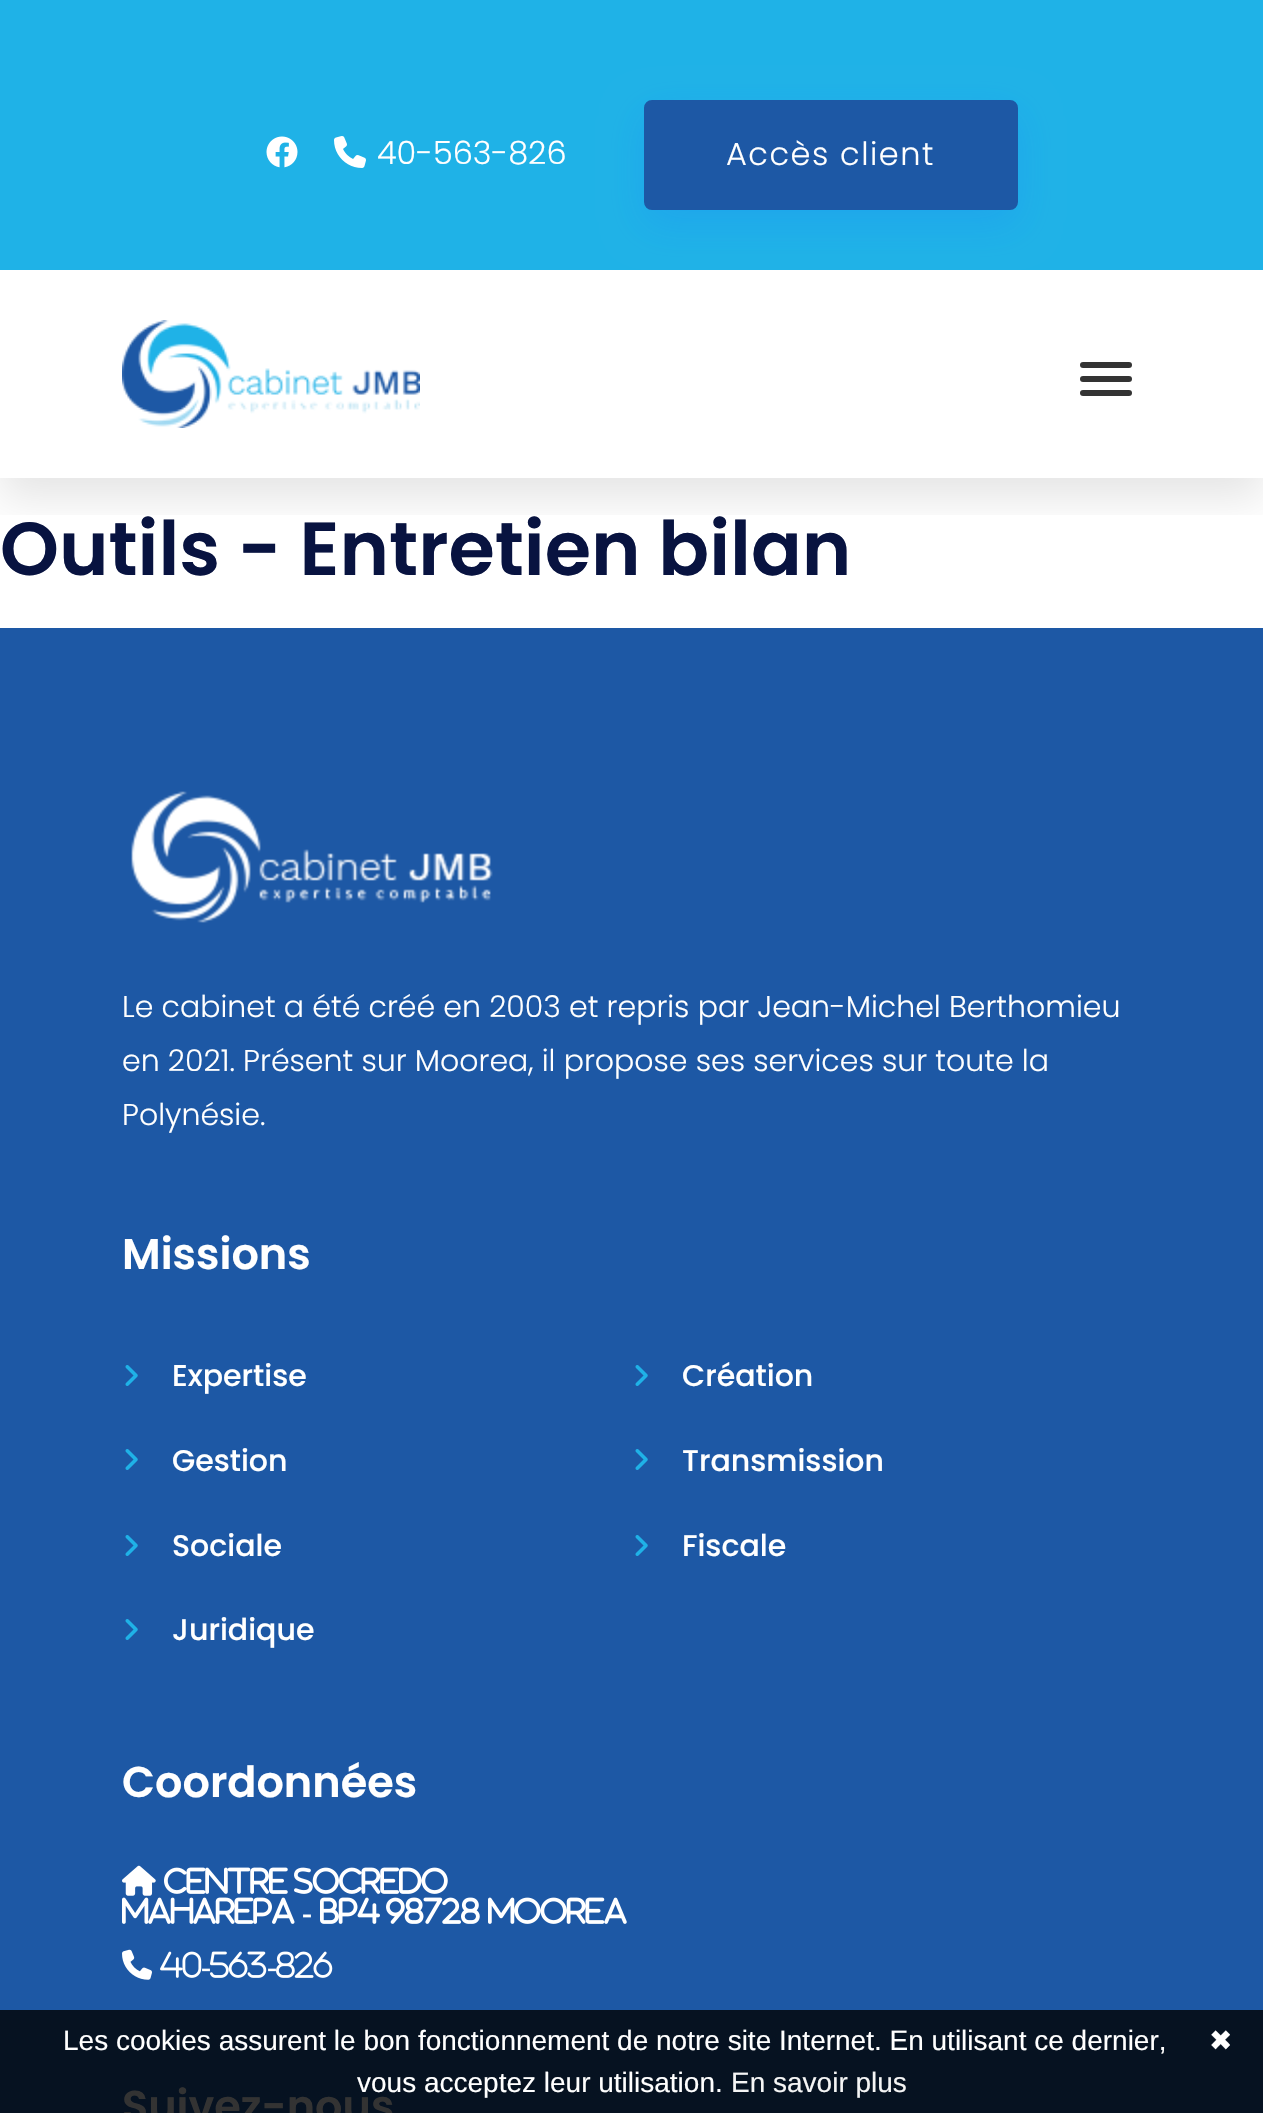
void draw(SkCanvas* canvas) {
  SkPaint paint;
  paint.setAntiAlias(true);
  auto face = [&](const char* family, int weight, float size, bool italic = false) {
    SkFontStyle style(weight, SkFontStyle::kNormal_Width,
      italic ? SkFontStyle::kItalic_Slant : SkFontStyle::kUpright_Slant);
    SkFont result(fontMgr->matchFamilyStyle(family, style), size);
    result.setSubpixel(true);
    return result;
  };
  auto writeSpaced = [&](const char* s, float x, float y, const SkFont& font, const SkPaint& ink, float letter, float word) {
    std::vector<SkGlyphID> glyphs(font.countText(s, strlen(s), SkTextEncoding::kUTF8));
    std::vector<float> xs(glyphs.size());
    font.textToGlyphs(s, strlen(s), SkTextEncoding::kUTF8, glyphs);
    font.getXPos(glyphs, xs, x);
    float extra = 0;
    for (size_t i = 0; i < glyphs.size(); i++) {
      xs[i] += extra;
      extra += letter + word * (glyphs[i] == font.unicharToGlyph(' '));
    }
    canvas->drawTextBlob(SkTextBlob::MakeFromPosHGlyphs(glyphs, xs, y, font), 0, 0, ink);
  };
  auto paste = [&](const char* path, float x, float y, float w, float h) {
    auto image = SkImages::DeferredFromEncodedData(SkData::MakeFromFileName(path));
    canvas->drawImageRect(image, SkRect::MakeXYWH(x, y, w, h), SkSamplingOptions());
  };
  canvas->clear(0xffffffff);
  paint.setColor(0xff1fb2e7);
  canvas->drawRect(SkRect::MakeXYWH(0, 0, 1263, 270), paint);
  paste("img/1.png", 266, 136, 32, 32);
  paste("img/2.png", 334, 136, 32, 32);
  paint.setColor(0x331975ff);
  paint.setMaskFilter(SkMaskFilter::MakeBlur(kNormal_SkBlurStyle, 20));
  canvas->drawRoundRect(SkRect::MakeXYWH(644, 114, 374, 110), 8, 8, paint);
  paint.setMaskFilter(nullptr);
  paint.setColor(0xff1d58a5);
  canvas->drawRoundRect(SkRect::MakeXYWH(647, 103, 368, 104), 5, 5, paint);
  paint.setStroke(true);
  paint.setStrokeWidth(6);
  canvas->drawRoundRect(SkRect::MakeXYWH(647, 103, 368, 104), 5, 5, paint);
  canvas->save();
  canvas->clipRect(SkRect::MakeXYWH(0, 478, 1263, 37));
  paint.setStroke(false);
  paint.setColor(0x1a000000);
  paint.setMaskFilter(SkMaskFilter::MakeBlur(kNormal_SkBlurStyle, 20));
  canvas->drawRect(SkRect::MakeXYWH(0, 290, 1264, 208), paint);
  paint.setMaskFilter(nullptr);
  canvas->restore();
  paste("img/3.png", 122, 320, 298, 108);
  paint.setColor(0xff333333);
  canvas->drawRoundRect(SkRect::MakeXYWH(1080, 362, 52, 6), 3, 3, paint);
  canvas->drawRoundRect(SkRect::MakeXYWH(1080, 376, 52, 6), 3, 3, paint);
  canvas->drawRoundRect(SkRect::MakeXYWH(1080, 390, 52, 6), 3, 3, paint);
  paint.setColor(0xff1d58a5);
  canvas->drawRect(SkRect::MakeXYWH(0, 628, 1263, 1382), paint);
  paint.setColor(0xff061221);
  canvas->drawRect(SkRect::MakeXYWH(0, 2010, 1263, 103), paint);
  paste("img/4.png", 131, 791, 362, 132);
  paste("img/5.png", 125, 1365, 13, 21);
  paste("img/5.png", 635, 1365, 13, 21);
  paste("img/5.png", 125, 1449, 13, 21);
  paste("img/5.png", 635, 1449, 13, 21);
  paste("img/5.png", 125, 1535, 13, 21);
  paste("img/5.png", 635, 1535, 13, 21);
  paste("img/5.png", 125, 1619, 13, 21);
  paste("img/6.png", 122, 1865, 34, 31);
  paste("img/7.png", 164, 1867, 124, 27);
  paste("img/8.png", 294, 1867, 154, 27);
  paste("img/9.png", 122, 1897, 173, 27);
  paste("img/10.png", 320, 1897, 60, 27);
  paste("img/11.png", 386, 1897, 94, 27);
  paste("img/12.png", 488, 1897, 139, 27);
  paste("img/13.png", 122, 1949, 30, 31);
  paste("img/14.png", 160, 1951, 42, 27);
  paste("img/15.png", 210, 1951, 57, 27);
  paste("img/16.png", 276, 1951, 57, 27);
  auto f0 = face("Poppins", 300, 32);
  paint.setColor(0xffffffff);
  canvas->drawString("40-563-826", 377, 164, f0, paint);
  writeSpaced("Accès client", 726, 165, f0, paint, 1.5f, 0);
  auto f1 = face("Poppins", 600, 75);
  paint.setColor(0xff081340);
  canvas->drawString("Outils - Entretien bilan", 0, 575, f1, paint);
  auto f2 = face("Poppins", 300, 30);
  paint.setColor(0xffffffff);
  {
    const struct { const char* s; float x, y; } items[] = {
      {"Le cabinet a été créé en 2003 et repris par Jean-Michel Berthomieu", 122, 1017},
      {"en 2021. Présent sur Moorea, il propose ses services sur toute la", 122, 1071},
      {"Polynésie.", 122, 1125},
    };
    for (auto [s, x, y] : items) {
      canvas->drawString(s, x, y, f2, paint);
    }
  }
  auto f3 = face("Poppins", 600, 43);
  canvas->drawString("Missions", 122, 1269, f3, paint);
  auto f4 = face("Poppins", 500, 30);
  {
    const struct { const char* s; float x, y; } items[] = {
      {"Expertise", 172, 1386},
      {"Création", 682, 1386},
      {"Gestion", 172, 1471},
      {"Transmission", 682, 1471},
      {"Sociale", 172, 1556},
      {"Fiscale", 682, 1556},
      {"Juridique", 172, 1640},
    };
    for (auto [s, x, y] : items) {
      canvas->drawString(s, x, y, f4, paint);
    }
  }
  canvas->drawString("Coordonnées", 122, 1797, f3, paint);
  auto f5 = face("Liberation Serif", 700, 30);
  canvas->drawString("-", 302, 1923, f5, paint);
  auto f6 = face("Liberation Serif", 400, 30);
  canvas->drawString("-", 201, 1977, f6, paint);
  canvas->drawString("-", 267, 1977, f6, paint);
  paint.setColor(0xff333333);
  canvas->drawString("Suivez-nous", 122, 2121, f3, paint);
  auto f7 = face("Liberation Sans", 400, 28);
  paint.setColor(0xffffffff);
  canvas->drawString("Les cookies assurent le bon fonctionnement de notre site Internet. En utilisant ce dernier,", 63, 2050, f7, paint);
  auto f8 = face("DejaVu Sans", 400, 28);
  canvas->drawString("✖", 1209, 2050, f8, paint);
  canvas->drawString("vous acceptez leur utilisation.", 357, 2092, f7, paint);
  paint.setColor(0xfff5f5f5);
  canvas->drawString("En savoir plus", 731, 2092, f7, paint);
}
